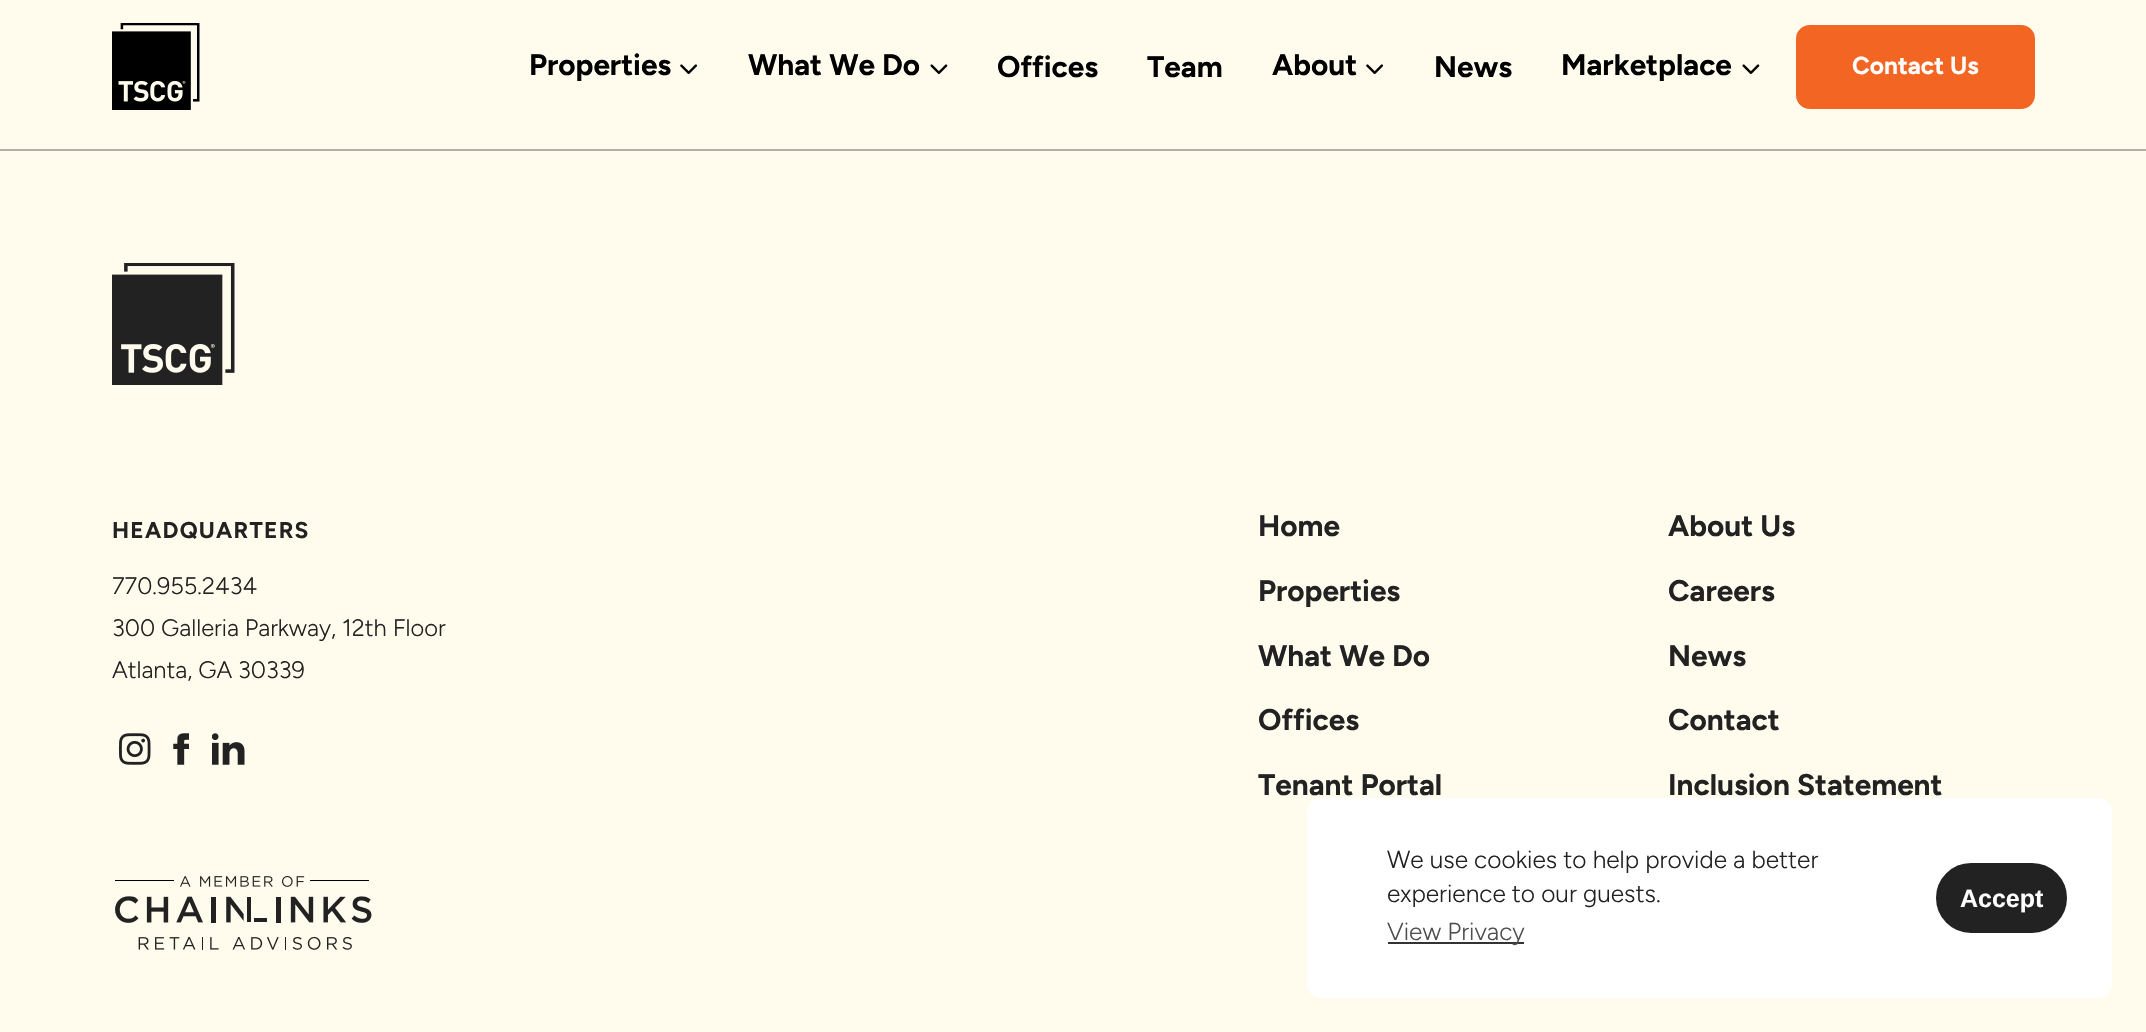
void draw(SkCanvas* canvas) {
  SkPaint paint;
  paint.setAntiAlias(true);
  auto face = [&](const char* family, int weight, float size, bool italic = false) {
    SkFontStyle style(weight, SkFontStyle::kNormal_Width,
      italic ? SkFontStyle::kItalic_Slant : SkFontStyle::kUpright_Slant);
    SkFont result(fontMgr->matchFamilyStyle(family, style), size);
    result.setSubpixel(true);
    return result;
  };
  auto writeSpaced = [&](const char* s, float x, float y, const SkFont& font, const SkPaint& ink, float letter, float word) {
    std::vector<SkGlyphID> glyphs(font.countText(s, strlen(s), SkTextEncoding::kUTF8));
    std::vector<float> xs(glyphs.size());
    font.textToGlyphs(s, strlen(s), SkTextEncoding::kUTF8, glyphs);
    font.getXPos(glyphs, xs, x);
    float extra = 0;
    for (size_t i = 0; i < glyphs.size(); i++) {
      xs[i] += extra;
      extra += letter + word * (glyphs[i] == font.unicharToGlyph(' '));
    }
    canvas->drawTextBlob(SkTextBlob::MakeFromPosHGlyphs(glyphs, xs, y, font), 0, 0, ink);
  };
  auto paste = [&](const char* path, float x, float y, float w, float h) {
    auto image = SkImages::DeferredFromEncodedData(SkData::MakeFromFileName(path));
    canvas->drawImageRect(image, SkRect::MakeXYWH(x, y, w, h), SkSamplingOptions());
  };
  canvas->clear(0xfffffcee);
  paste("img/1.png", 112, 23, 88, 87);
  paste("img/2.png", 680, 64, 17, 10);
  paste("img/3.png", 930, 64, 18, 10);
  paste("img/2.png", 1366, 64, 17, 10);
  paste("img/3.png", 1742, 64, 18, 10);
  paint.setColor(0xfff26522);
  canvas->drawRoundRect(SkRect::MakeXYWH(1797, 26, 237, 82), 13, 13, paint);
  paint.setStroke(true);
  paint.setStrokeWidth(2);
  canvas->drawRoundRect(SkRect::MakeXYWH(1797, 26, 237, 82), 13, 13, paint);
  paint.setStroke(false);
  paint.setColor(0xffb3b0a7);
  canvas->drawRect(SkRect::MakeXYWH(0, 149, 2146, 2), paint);
  paste("img/4.png", 112, 263, 123, 122);
  paste("img/5.png", 119, 733, 32, 32);
  paste("img/6.png", 173, 733, 16, 32);
  paste("img/7.png", 212, 733, 33, 32);
  paste("img/8.png", 115, 876, 257, 74);
  paint.setColor(0xffffffff);
  canvas->drawRoundRect(SkRect::MakeXYWH(1307, 798, 805, 200), 14, 14, paint);
  paint.setColor(0xff333333);
  canvas->drawRect(SkRect::MakeXYWH(1388, 942, 136, 2), paint);
  paint.setColor(0xff222222);
  canvas->drawRoundRect(SkRect::MakeXYWH(1938, 865, 127, 66), 33, 33, paint);
  paint.setStroke(true);
  paint.setStrokeWidth(4);
  canvas->drawRoundRect(SkRect::MakeXYWH(1938, 865, 127, 66), 33, 33, paint);
  auto f0 = face("Figtree", 700, 29.75f);
  paint.setStroke(false);
  paint.setColor(0xff000000);
  {
    const struct { const char* s; float x, y; } items[] = {
      {"Properties", 529, 75},
      {"What We Do", 748, 75},
      {"Offices", 997, 77},
      {"Team", 1147, 77},
      {"About", 1272, 75},
      {"News", 1434, 77},
      {"Marketplace", 1561, 75},
    };
    for (auto [s, x, y] : items) {
      canvas->drawString(s, x, y, f0, paint);
    }
  }
  auto f1 = face("Figtree", 700, 24.5f);
  paint.setColor(0xffffffff);
  canvas->drawString("Contact Us", 1852, 74, f1, paint);
  auto f2 = face("Figtree", 700, 22.75f);
  paint.setColor(0xff222222);
  writeSpaced("HEADQUARTERS", 112, 538, f2, paint, 1.25f, 0);
  auto f3 = face("Figtree", 300, 23.75f);
  {
    const struct { const char* s; float x, y; } items[] = {
      {"770.955.2434", 112, 594},
      {"300 Galleria Parkway, 12th Floor", 112, 636},
      {"Atlanta, GA 30339", 112, 678},
    };
    for (auto [s, x, y] : items) {
      canvas->drawString(s, x, y, f3, paint);
    }
  }
  {
    const struct { const char* s; float x, y; } items[] = {
      {"Home", 1258, 536},
      {"Properties", 1258, 601},
      {"What We Do", 1258, 666},
      {"Offices", 1258, 730},
      {"Tenant Portal", 1258, 795},
      {"About Us", 1668, 536},
      {"Careers", 1668, 601},
      {"News", 1668, 666},
      {"Contact", 1668, 730},
      {"Inclusion Statement", 1668, 795},
    };
    for (auto [s, x, y] : items) {
      canvas->drawString(s, x, y, f0, paint);
    }
  }
  auto f4 = face("Figtree", 300, 24.5f);
  canvas->drawString("We use cookies to help provide a better", 1387, 868, f4, paint);
  canvas->drawString("experience to our guests.", 1387, 902, f4, paint);
  paint.setColor(0xff4e4e4e);
  canvas->drawString("View Privacy", 1387, 940, f4, paint);
  auto f5 = face("Liberation Sans", 700, 25);
  paint.setColor(0xffffffff);
  canvas->drawString("Accept", 1960, 907, f5, paint);
}
